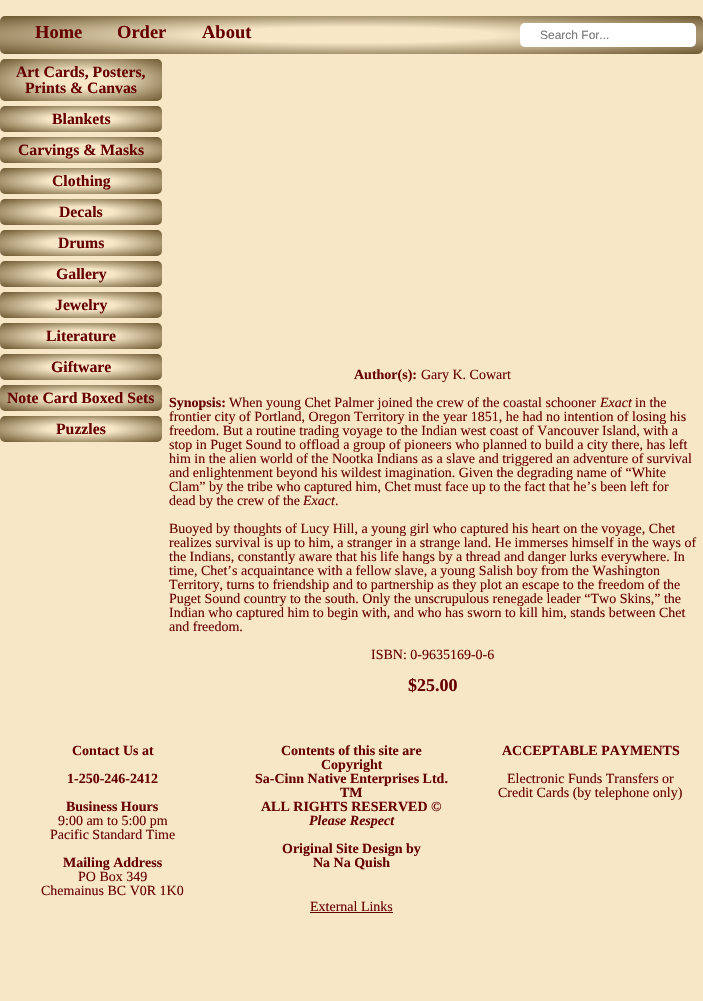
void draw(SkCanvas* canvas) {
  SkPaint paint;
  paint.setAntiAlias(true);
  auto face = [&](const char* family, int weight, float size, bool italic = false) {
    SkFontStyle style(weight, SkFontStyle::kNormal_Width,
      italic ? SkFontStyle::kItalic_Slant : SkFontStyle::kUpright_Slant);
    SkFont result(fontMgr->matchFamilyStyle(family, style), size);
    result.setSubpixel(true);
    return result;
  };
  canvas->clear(0xfff7e7c7);
  {
    const SkColor colors[] = {0xfff7e7c7, 0xff6b572f};
    const float stops[] = {0.29f, 1};
    SkMatrix m = SkMatrix::Translate(352, 35).preScale(497, 27);
    paint.setShader(SkGradientShader::MakeRadial({0, 0}, 1, colors, stops, 2, SkTileMode::kClamp, 0, &m));
    paint.setAlpha(255);
  }
  canvas->drawRoundRect(SkRect::MakeXYWH(0, 16, 703, 38), 5, 5, paint);
  paint.setShader(nullptr);
  paint.setColor(0xffffffff);
  canvas->drawRoundRect(SkRect::MakeXYWH(520, 23, 176, 24), 5, 5, paint);
  {
    const SkColor colors[] = {0xfff7e7c7, 0xff6b572f};
    const float stops[] = {0.29f, 1};
    SkMatrix m = SkMatrix::Translate(81, 80).preScale(115, 30);
    paint.setShader(SkGradientShader::MakeRadial({0, 0}, 1, colors, stops, 2, SkTileMode::kClamp, 0, &m));
    paint.setAlpha(255);
  }
  canvas->drawRoundRect(SkRect::MakeXYWH(0, 59, 162, 42), 5, 5, paint);
  {
    const SkColor colors[] = {0xfff7e7c7, 0xff6b572f};
    const float stops[] = {0.29f, 1};
    SkMatrix m = SkMatrix::Translate(81, 119).preScale(115, 18);
    paint.setShader(SkGradientShader::MakeRadial({0, 0}, 1, colors, stops, 2, SkTileMode::kClamp, 0, &m));
    paint.setAlpha(255);
  }
  canvas->drawRoundRect(SkRect::MakeXYWH(0, 106, 162, 26), 5, 5, paint);
  {
    const SkColor colors[] = {0xfff7e7c7, 0xff6b572f};
    const float stops[] = {0.29f, 1};
    SkMatrix m = SkMatrix::Translate(81, 150).preScale(115, 18);
    paint.setShader(SkGradientShader::MakeRadial({0, 0}, 1, colors, stops, 2, SkTileMode::kClamp, 0, &m));
    paint.setAlpha(255);
  }
  canvas->drawRoundRect(SkRect::MakeXYWH(0, 137, 162, 26), 5, 5, paint);
  {
    const SkColor colors[] = {0xfff7e7c7, 0xff6b572f};
    const float stops[] = {0.29f, 1};
    SkMatrix m = SkMatrix::Translate(81, 181).preScale(115, 18);
    paint.setShader(SkGradientShader::MakeRadial({0, 0}, 1, colors, stops, 2, SkTileMode::kClamp, 0, &m));
    paint.setAlpha(255);
  }
  canvas->drawRoundRect(SkRect::MakeXYWH(0, 168, 162, 26), 5, 5, paint);
  {
    const SkColor colors[] = {0xfff7e7c7, 0xff6b572f};
    const float stops[] = {0.29f, 1};
    SkMatrix m = SkMatrix::Translate(81, 212).preScale(115, 18);
    paint.setShader(SkGradientShader::MakeRadial({0, 0}, 1, colors, stops, 2, SkTileMode::kClamp, 0, &m));
    paint.setAlpha(255);
  }
  canvas->drawRoundRect(SkRect::MakeXYWH(0, 199, 162, 26), 5, 5, paint);
  {
    const SkColor colors[] = {0xfff7e7c7, 0xff6b572f};
    const float stops[] = {0.29f, 1};
    SkMatrix m = SkMatrix::Translate(81, 243).preScale(115, 18);
    paint.setShader(SkGradientShader::MakeRadial({0, 0}, 1, colors, stops, 2, SkTileMode::kClamp, 0, &m));
    paint.setAlpha(255);
  }
  canvas->drawRoundRect(SkRect::MakeXYWH(0, 230, 162, 26), 5, 5, paint);
  {
    const SkColor colors[] = {0xfff7e7c7, 0xff6b572f};
    const float stops[] = {0.29f, 1};
    SkMatrix m = SkMatrix::Translate(81, 274).preScale(115, 18);
    paint.setShader(SkGradientShader::MakeRadial({0, 0}, 1, colors, stops, 2, SkTileMode::kClamp, 0, &m));
    paint.setAlpha(255);
  }
  canvas->drawRoundRect(SkRect::MakeXYWH(0, 261, 162, 26), 5, 5, paint);
  {
    const SkColor colors[] = {0xfff7e7c7, 0xff6b572f};
    const float stops[] = {0.29f, 1};
    SkMatrix m = SkMatrix::Translate(81, 305).preScale(115, 18);
    paint.setShader(SkGradientShader::MakeRadial({0, 0}, 1, colors, stops, 2, SkTileMode::kClamp, 0, &m));
    paint.setAlpha(255);
  }
  canvas->drawRoundRect(SkRect::MakeXYWH(0, 292, 162, 26), 5, 5, paint);
  {
    const SkColor colors[] = {0xfff7e7c7, 0xff6b572f};
    const float stops[] = {0.29f, 1};
    SkMatrix m = SkMatrix::Translate(81, 336).preScale(115, 18);
    paint.setShader(SkGradientShader::MakeRadial({0, 0}, 1, colors, stops, 2, SkTileMode::kClamp, 0, &m));
    paint.setAlpha(255);
  }
  canvas->drawRoundRect(SkRect::MakeXYWH(0, 323, 162, 26), 5, 5, paint);
  {
    const SkColor colors[] = {0xfff7e7c7, 0xff6b572f};
    const float stops[] = {0.29f, 1};
    SkMatrix m = SkMatrix::Translate(81, 367).preScale(115, 18);
    paint.setShader(SkGradientShader::MakeRadial({0, 0}, 1, colors, stops, 2, SkTileMode::kClamp, 0, &m));
    paint.setAlpha(255);
  }
  canvas->drawRoundRect(SkRect::MakeXYWH(0, 354, 162, 26), 5, 5, paint);
  {
    const SkColor colors[] = {0xfff7e7c7, 0xff6b572f};
    const float stops[] = {0.29f, 1};
    SkMatrix m = SkMatrix::Translate(81, 398).preScale(115, 18);
    paint.setShader(SkGradientShader::MakeRadial({0, 0}, 1, colors, stops, 2, SkTileMode::kClamp, 0, &m));
    paint.setAlpha(255);
  }
  canvas->drawRoundRect(SkRect::MakeXYWH(0, 385, 162, 26), 5, 5, paint);
  {
    const SkColor colors[] = {0xfff7e7c7, 0xff6b572f};
    const float stops[] = {0.29f, 1};
    SkMatrix m = SkMatrix::Translate(81, 429).preScale(115, 18);
    paint.setShader(SkGradientShader::MakeRadial({0, 0}, 1, colors, stops, 2, SkTileMode::kClamp, 0, &m));
    paint.setAlpha(255);
  }
  canvas->drawRoundRect(SkRect::MakeXYWH(0, 416, 162, 26), 5, 5, paint);
  paint.setShader(nullptr);
  paint.setColor(0xff660000);
  canvas->drawRect(SkRect::MakeXYWH(310, 912, 83, 1), paint);
  auto f0 = face("Liberation Serif", 700, 18.5f);
  {
    const struct { const char* s; float x, y; } items[] = {
      {"Home", 35, 38},
      {"Order", 117, 38},
      {"About", 202, 38},
    };
    for (auto [s, x, y] : items) {
      canvas->drawString(s, x, y, f0, paint);
    }
  }
  auto f1 = face("Liberation Sans", 400, 12);
  paint.setColor(0xff757575);
  canvas->drawString("Search For...", 540, 39, f1, paint);
  auto f2 = face("Liberation Serif", 700, 15.75f);
  paint.setColor(0xff660000);
  {
    const struct { const char* s; float x, y; } items[] = {
      {"Art Cards, Posters,", 16, 77},
      {"Prints & Canvas", 25, 93},
      {"Blankets", 52, 124},
      {"Carvings & Masks", 18, 155},
      {"Clothing", 52, 186},
      {"Decals", 59, 217},
      {"Drums", 58, 248},
      {"Gallery", 56, 279},
      {"Jewelry", 55, 310},
      {"Literature", 46, 341},
      {"Giftware", 51, 372},
      {"Note Card Boxed Sets", 7, 403},
      {"Puzzles", 56, 434},
    };
    for (auto [s, x, y] : items) {
      canvas->drawString(s, x, y, f2, paint);
    }
  }
  auto f3 = face("Liberation Serif", 700, 14);
  canvas->drawString("Author(s):", 354, 379, f3, paint);
  auto f4 = face("Liberation Serif", 400, 14);
  canvas->drawString("Gary K. Cowart", 421, 379, f4, paint);
  canvas->drawString("Synopsis:", 169, 407, f3, paint);
  canvas->drawString("When young Chet Palmer joined the crew of the coastal schooner", 229, 407, f4, paint);
  auto f5 = face("Liberation Serif", 400, 14, true);
  canvas->drawString("Exact", 600, 407, f5, paint);
  {
    const struct { const char* s; float x, y; } items[] = {
      {"in the", 635, 407},
      {"frontier city of Portland, Oregon Territory in the year 1851, he had no intention of losing his", 169, 421},
      {"freedom. But a routine trading voyage to the Indian west coast of Vancouver Island, with a", 169, 435},
      {"stop in Puget Sound to offload a group of pioneers who planned to build a city there, has left", 169, 449},
      {"him in the alien world of the Nootka Indians as a slave and triggered an adventure of survival", 169, 463},
      {"and enlightenment beyond his wildest imagination. Given the degrading name of “White", 169, 477},
      {"Clam” by the tribe who captured him, Chet must face up to the fact that he’s been left for", 169, 491},
      {"dead by the crew of the", 169, 505},
    };
    for (auto [s, x, y] : items) {
      canvas->drawString(s, x, y, f4, paint);
    }
  }
  canvas->drawString("Exact", 303, 505, f5, paint);
  {
    const struct { const char* s; float x, y; } items[] = {
      {".", 335, 505},
      {"Buoyed by thoughts of Lucy Hill, a young girl who captured his heart on the voyage, Chet", 169, 533},
      {"realizes survival is up to him, a stranger in a strange land. He immerses himself in the ways of", 169, 547},
      {"the Indians, constantly aware that his life hangs by a thread and danger lurks everywhere. In", 169, 561},
      {"time, Chet’s acquaintance with a fellow slave, a young Salish boy from the Washington", 169, 575},
      {"Territory, turns to friendship and to partnership as they plot an escape to the freedom of the", 169, 589},
      {"Puget Sound country to the south. Only the unscrupulous renegade leader “Two Skins,” the", 169, 603},
      {"Indian who captured him to begin with, and who has sworn to kill him, stands between Chet", 169, 617},
      {"and freedom.", 169, 631},
      {"ISBN: 0-9635169-0-6", 371, 659},
    };
    for (auto [s, x, y] : items) {
      canvas->drawString(s, x, y, f4, paint);
    }
  }
  auto f6 = face("Liberation Serif", 700, 18);
  canvas->drawString("$25.00", 408, 691, f6, paint);
  {
    const struct { const char* s; float x, y; } items[] = {
      {"Contact Us at", 72, 755},
      {"1-250-246-2412", 67, 783},
      {"Business Hours", 66, 811},
    };
    for (auto [s, x, y] : items) {
      canvas->drawString(s, x, y, f3, paint);
    }
  }
  canvas->drawString("9:00 am to 5:00 pm", 58, 825, f4, paint);
  canvas->drawString("Pacific Standard Time", 50, 839, f4, paint);
  canvas->drawString("Mailing Address", 63, 867, f3, paint);
  canvas->drawString("PO Box 349", 78, 881, f4, paint);
  canvas->drawString("Chemainus BC V0R 1K0", 41, 895, f4, paint);
  {
    const struct { const char* s; float x, y; } items[] = {
      {"Contents of this site are", 281, 755},
      {"Copyright", 321, 769},
      {"Sa-Cinn Native Enterprises Ltd.", 255, 783},
      {"TM", 340, 797},
      {"ALL RIGHTS RESERVED ©", 261, 811},
    };
    for (auto [s, x, y] : items) {
      canvas->drawString(s, x, y, f3, paint);
    }
  }
  auto f7 = face("Liberation Serif", 700, 14, true);
  canvas->drawString("Please Respect", 309, 825, f7, paint);
  canvas->drawString("Original Site Design by", 282, 853, f3, paint);
  canvas->drawString("Na Na Quish", 313, 867, f3, paint);
  canvas->drawString("External Links", 310, 911, f4, paint);
  canvas->drawString("ACCEPTABLE PAYMENTS", 502, 755, f3, paint);
  canvas->drawString("Electronic Funds Transfers or", 507, 783, f4, paint);
  canvas->drawString("Credit Cards (by telephone only)", 498, 797, f4, paint);
}
